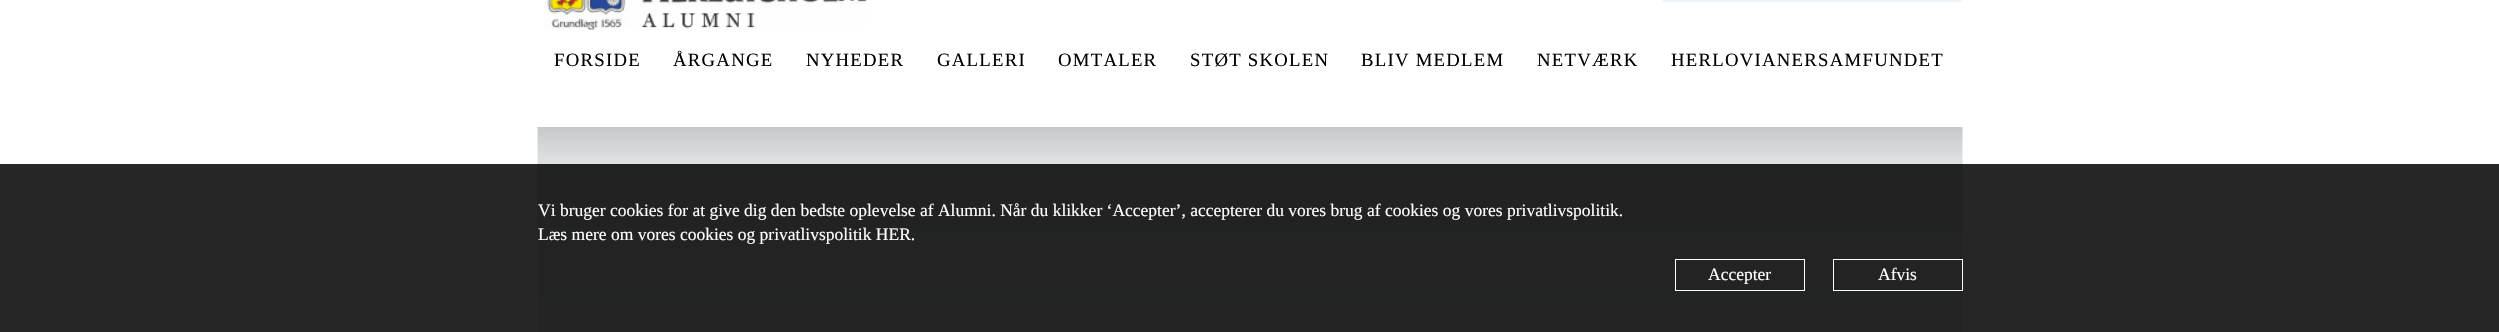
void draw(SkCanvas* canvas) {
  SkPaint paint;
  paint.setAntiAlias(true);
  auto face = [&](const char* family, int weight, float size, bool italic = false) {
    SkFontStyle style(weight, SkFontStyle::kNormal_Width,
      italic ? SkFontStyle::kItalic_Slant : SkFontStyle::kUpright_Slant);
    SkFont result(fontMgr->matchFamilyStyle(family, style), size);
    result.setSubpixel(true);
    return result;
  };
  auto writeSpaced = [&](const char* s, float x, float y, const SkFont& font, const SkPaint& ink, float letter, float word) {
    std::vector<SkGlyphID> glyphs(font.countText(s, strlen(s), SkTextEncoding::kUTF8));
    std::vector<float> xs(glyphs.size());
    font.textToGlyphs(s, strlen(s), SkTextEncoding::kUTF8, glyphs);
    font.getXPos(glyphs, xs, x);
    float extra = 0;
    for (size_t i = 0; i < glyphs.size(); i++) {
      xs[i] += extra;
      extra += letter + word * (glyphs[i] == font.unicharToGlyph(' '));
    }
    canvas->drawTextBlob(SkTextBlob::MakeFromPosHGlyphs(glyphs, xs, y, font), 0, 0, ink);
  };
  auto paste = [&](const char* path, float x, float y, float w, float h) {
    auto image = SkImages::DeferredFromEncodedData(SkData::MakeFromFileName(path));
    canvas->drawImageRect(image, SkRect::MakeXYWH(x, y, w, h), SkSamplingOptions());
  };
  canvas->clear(0xffffffff);
  paste("img/1.png", 544, 0, 323, 30);
  paste("img/2.png", 1662, 0, 263, 2);
  paste("img/3.png", 1925, 0, 38, 2);
  paste("img/4.png", 537, 127, 1426, 205);
  paint.setColor(0xd9000000);
  canvas->drawRect(SkRect::MakeXYWH(0, 164, 2499, 168), paint);
  paint.setStroke(true);
  paint.setStrokeWidth(1);
  paint.setColor(0xffffffff);
  canvas->drawRect(SkRect::MakeXYWH(1675.5f, 259.5f, 129, 31), paint);
  canvas->drawRect(SkRect::MakeXYWH(1833.5f, 259.5f, 129, 31), paint);
  auto f0 = face("Liberation Serif", 400, 18.75f);
  paint.setStroke(false);
  paint.setColor(0xff000000);
  {
    const struct { const char* s; float x, y; } items[] = {
      {"FORSIDE", 554, 66},
      {"ÅRGANGE", 673, 66},
      {"NYHEDER", 806, 66},
      {"GALLERI", 937, 66},
      {"OMTALER", 1058, 66},
      {"STØT SKOLEN", 1190, 66},
      {"BLIV MEDLEM", 1361, 66},
      {"NETVÆRK", 1537, 66},
      {"HERLOVIANERSAMFUNDET", 1671, 66},
    };
    for (auto [s, x, y] : items) {
      writeSpaced(s, x, y, f0, paint, 1.25f, 0);
    }
  }
  auto f1 = face("Liberation Serif", 400, 17.5f);
  paint.setColor(0xffffffff);
  {
    const struct { const char* s; float x, y; } items[] = {
      {"Vi bruger cookies for at give dig den bedste oplevelse af Alumni. Når du klikker ‘Accepter’, accepterer du vores brug af cookies og vores privatlivspolitik.", 538, 216},
      {"Læs mere om vores cookies og privatlivspolitik HER.", 538, 240},
      {"Accepter", 1708, 280},
      {"Afvis", 1878, 280},
    };
    for (auto [s, x, y] : items) {
      canvas->drawString(s, x, y, f1, paint);
    }
  }
}
